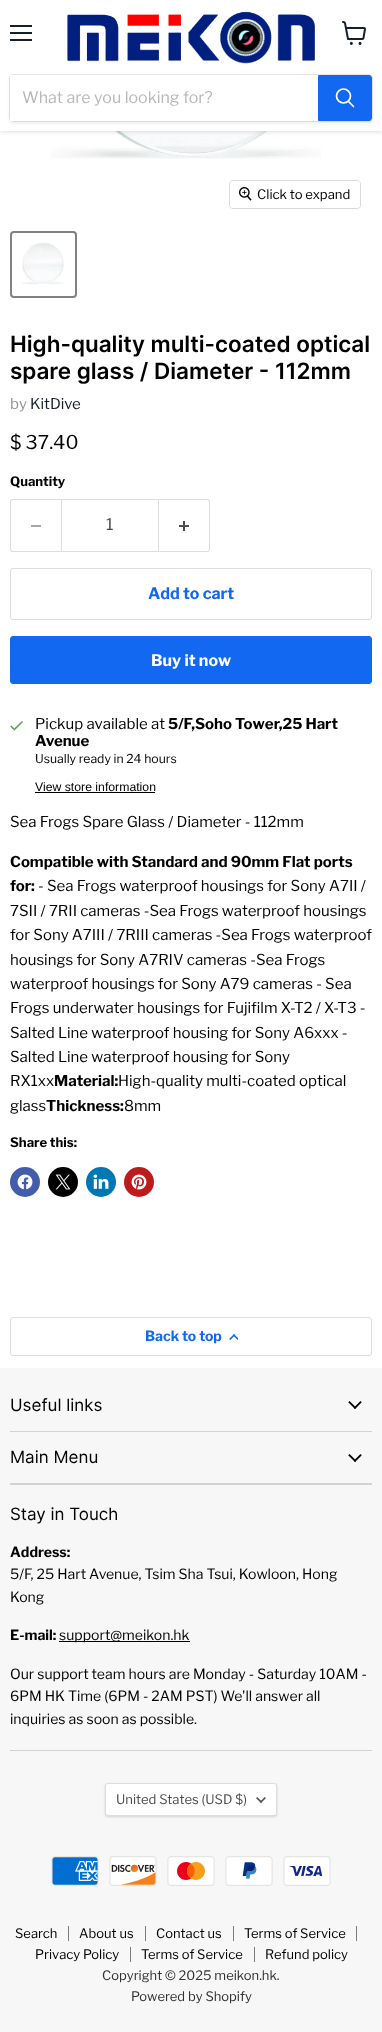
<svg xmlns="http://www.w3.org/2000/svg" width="382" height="2032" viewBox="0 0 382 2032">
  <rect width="100%" height="100%" fill="#fff"/>
  <image x="51" y="131" width="270" height="28" href="img/3.png"/>
  <path d="M0 1h382v131H0z" fill="#80808040" filter="blur(2px)"/>
  <path d="M0 0h382v131H0z" fill="#fff"/>
  <path d="M10 25h22v2H10z" fill="#171f2b"/>
  <path d="M10 32h22v2H10z" fill="#171f2b"/>
  <path d="M10 39h22v2H10z" fill="#171f2b"/>
  <image x="342" y="21" width="24" height="24" href="img/1.png"/>
  <image x="67" y="11" width="248" height="53" href="img/2.png"/>
  <rect x="9" y="76" width="364" height="48" rx="4" fill="#8080801c" filter="blur(1.5px)"/>
  <rect x="9.5" y="74.5" width="363" height="47" rx="3.5" fill="none" stroke="#80808033"/>
  <path d="M10 75h308v46H10z" fill="#fff"/>
  <path d="M318.5 75.5H369C370.5 75.5 371.5 76.5 371.5 78V118C371.5 119.5 370.5 120.5 369 120.5H318.5Z" fill="#1268f1" stroke="#1268f1"/>
  <path d="M353.5 106.5L348.5 101.5" fill="none" stroke="#fff" stroke-width="1.7" stroke-linecap="round"/>
  <circle cx="343.5" cy="96" r="7" fill="none" stroke="#fff" stroke-width="1.7"/>
  <rect x="229.5" y="180.5" width="131" height="28" rx="3.5" fill="none" stroke="#d9d9d9"/>
  <rect x="230" y="181" width="130" height="27" rx="3" fill="#ffffffe6"/>
  <image x="239" y="187" width="13" height="14" href="img/4.png"/>
  <rect x="11" y="232" width="65" height="65" rx="3" fill="none" stroke="#818181" stroke-width="2"/>
  <image x="22" y="242" width="42" height="43" href="img/5.png"/>
  <path d="M13 499H61V552H13C11 552 10 551 10 549V502C10 500 11 499 13 499ZM13 500H61V551H13C12 551 11 550 11 549V502C11 501 12 500 13 500Z" fill="#ddd" fill-rule="evenodd"/>
  <path d="M31 525h10v2H31z" fill="#a6a6a6"/>
  <path d="M61.5 499.5h97v52H61.5z" fill="none" stroke="#ddd"/>
  <path d="M159 499H207C209 499 210 500 210 502V549C210 551 209 552 207 552H159ZM159 500H207C208 500 209 501 209 502V549C209 550 208 551 207 551H159Z" fill="#ddd" fill-rule="evenodd"/>
  <image x="179" y="521" width="10" height="10" href="img/6.png"/>
  <rect x="10.5" y="568.5" width="361" height="51" rx="2.5" fill="none" stroke="#ddd"/>
  <rect x="10.5" y="636.5" width="361" height="47" rx="2.5" fill="#1268f1" stroke="#1268f1"/>
  <image x="10" y="721" width="13" height="10" href="img/7.png"/>
  <path d="M35 792h120v1H35z" fill="#000"/>
  <circle cx="25" cy="1182" r="15" fill="#425dab"/>
  <image x="17" y="1174" width="16" height="16" href="img/8.png"/>
  <circle cx="63" cy="1182" r="15" fill="#000"/>
  <image x="55" y="1174" width="16" height="16" href="img/9.png"/>
  <circle cx="101" cy="1182" r="15" fill="#0077b5"/>
  <image x="93" y="1174" width="16" height="15" href="img/10.png"/>
  <circle cx="139" cy="1182" r="15" fill="#bd1c1c"/>
  <image x="131" y="1174" width="16" height="16" href="img/11.png"/>
  <rect x="10.5" y="1317.5" width="361" height="38" rx="2.5" fill="none" stroke="#ddd"/>
  <image x="229" y="1334" width="9" height="6" href="img/12.png"/>
  <path d="M0 1368h382v664H0z" fill="#f7f7f7"/>
  <path d="M10 1431h362v1H10z" fill="#d2d2d2"/>
  <image x="348" y="1401" width="14" height="8" href="img/13.png"/>
  <path d="M10 1483h362v2H10z" fill="#d2d2d2"/>
  <image x="348" y="1454" width="14" height="8" href="img/13.png"/>
  <path d="M10 1750h362v1H10z" fill="#d2d2d2"/>
  <path d="M59 1641h131v1H59z" fill="#000"/>
  <rect x="105" y="1784" width="172" height="33" rx="3" fill="#00000026" filter="blur(1px)"/>
  <rect x="105.5" y="1783.5" width="171" height="32" rx="2.5" fill="#fff" stroke="#ddd"/>
  <image x="256" y="1797" width="10" height="6" href="img/14.png"/>
  <image x="51" y="1856" width="48" height="30" href="img/15.png"/>
  <image x="109" y="1856" width="48" height="30" href="img/16.png"/>
  <image x="167" y="1856" width="48" height="30" href="img/17.png"/>
  <image x="225" y="1856" width="48" height="30" href="img/18.png"/>
  <image x="283" y="1856" width="48" height="30" href="img/19.png"/>
  <path d="M68 1926h1v15H68z" fill="#7c7c7c"/>
  <path d="M145 1926h1v15H145z" fill="#7c7c7c"/>
  <path d="M233 1926h1v15H233z" fill="#7c7c7c"/>
  <path d="M356 1926h1v15H356z" fill="#7c7c7c"/>
  <path d="M130 1947h1v15H130z" fill="#7c7c7c"/>
  <path d="M254 1947h1v15H254z" fill="#7c7c7c"/>
  <text x="22" y="103" font-family="Libre Franklin" font-size="16" fill="#b8b8b8">What are you looking for?</text>
  <text x="257" y="199" font-family="Libre Franklin" font-size="13.1" fill="#000">Click to expand</text>
  <g font-family="Inter" font-size="22.5" font-weight="600" fill="#000">
    <text x="10" y="352">High-quality multi-coated optical</text>
    <text x="10" y="379">spare glass / Diameter - 112mm</text>
  </g>
  <text x="10" y="409" font-family="Libre Franklin" font-size="15" fill="#949494">by</text>
  <text x="30" y="409" font-family="Libre Franklin" font-size="15" fill="#171f2b">KitDive</text>
  <text x="10" y="449" font-family="Libre Franklin" font-size="19" fill="#000">$ 37.40</text>
  <text x="10" y="486" font-family="Libre Franklin" font-size="13.1" font-weight="bold" fill="#000">Quantity</text>
  <text x="106" y="530" font-family="Libre Franklin" font-size="16" fill="#4d4d4d">1</text>
  <text x="148" y="599" font-family="Libre Franklin" font-size="16" font-weight="bold" fill="#1268f1">Add to cart</text>
  <text x="151" y="666" font-family="Libre Franklin" font-size="16" font-weight="bold" fill="#fff">Buy it now</text>
  <text x="35" y="729" font-family="Libre Franklin" font-size="15" fill="#000">Pickup available at</text>
  <g font-family="Libre Franklin" font-size="15" font-weight="bold" fill="#000">
    <text x="168" y="729">5/F,Soho Tower,25 Hart</text>
    <text x="35" y="746">Avenue</text>
  </g>
  <text x="35" y="763" font-family="Libre Franklin" font-size="12.25" fill="#000">Usually ready in 24 hours</text>
  <text x="35" y="791" font-family="Liberation Sans" font-size="12.25" fill="#000">View store information</text>
  <text x="10" y="827" font-family="Libre Franklin" font-size="15" fill="#000">Sea Frogs Spare Glass / Diameter - 112mm</text>
  <g font-family="Libre Franklin" font-size="15" font-weight="bold" fill="#000">
    <text x="10" y="867">Compatible with Standard and 90mm Flat ports</text>
    <text x="10" y="891">for:</text>
  </g>
  <g font-family="Libre Franklin" font-size="15" fill="#000">
    <text x="38" y="891">- Sea Frogs waterproof housings for Sony A7II /</text>
    <text x="10" y="916">7SII / 7RII cameras -Sea Frogs waterproof housings</text>
    <text x="10" y="940">for Sony A7III / 7RIII cameras -Sea Frogs waterproof</text>
    <text x="10" y="965">housings for Sony A7RIV cameras -Sea Frogs</text>
    <text x="10" y="989">waterproof housings for Sony A79 cameras - Sea</text>
    <text x="10" y="1013">Frogs underwater housings for Fujifilm X-T2 / X-T3 -</text>
    <text x="10" y="1038">Salted Line waterproof housing for Sony A6xxx -</text>
    <text x="10" y="1062">Salted Line waterproof housing for Sony</text>
    <text x="10" y="1086">RX1xx</text>
  </g>
  <text x="54" y="1086" font-family="Libre Franklin" font-size="15" font-weight="bold" fill="#000">Material:</text>
  <g font-family="Libre Franklin" font-size="15" fill="#000">
    <text x="118" y="1086">High-quality multi-coated optical</text>
    <text x="10" y="1111">glass</text>
  </g>
  <text x="46" y="1111" font-family="Libre Franklin" font-size="15" font-weight="bold" fill="#000">Thickness:</text>
  <text x="124" y="1111" font-family="Libre Franklin" font-size="15" fill="#000">8mm</text>
  <text x="10" y="1147" font-family="Libre Franklin" font-size="13.1" font-weight="bold" fill="#000">Share this:</text>
  <text x="145" y="1341" font-family="Libre Franklin" font-size="14" font-weight="bold" fill="#1268f1">Back to top</text>
  <g font-family="Inter" font-size="17" fill="#000">
    <text x="10" y="1411">Useful links</text>
    <text x="10" y="1463">Main Menu</text>
    <text x="10" y="1520">Stay in Touch</text>
  </g>
  <text x="10" y="1557" font-family="Libre Franklin" font-size="14.05" font-weight="bold" fill="#000">Address:</text>
  <g font-family="Libre Franklin" font-size="14.05" fill="#000">
    <text x="10" y="1579">5/F, 25 Hart Avenue, Tsim Sha Tsui, Kowloon, Hong</text>
    <text x="10" y="1602">Kong</text>
  </g>
  <text x="10" y="1640" font-family="Libre Franklin" font-size="14.05" font-weight="bold" fill="#000">E-mail:</text>
  <g font-family="Libre Franklin" font-size="14.05" fill="#000">
    <text x="59" y="1640">support@meikon.hk</text>
    <text x="10" y="1679">Our support team hours are Monday - Saturday 10AM -</text>
    <text x="10" y="1701">6PM HK Time (6PM - 2AM PST) We'll answer all</text>
    <text x="10" y="1724">inquiries as soon as possible.</text>
  </g>
  <text x="116" y="1804" font-family="Libre Franklin" font-size="13.1" fill="#4d4d4d">United States (USD $)</text>
  <g font-family="Libre Franklin" font-size="13" fill="#000">
    <text x="15" y="1938">Search</text>
    <text x="79" y="1938">About us</text>
    <text x="156" y="1938">Contact us</text>
    <text x="244" y="1938">Terms of Service</text>
    <text x="35" y="1959">Privacy Policy</text>
    <text x="141" y="1959">Terms of Service</text>
    <text x="265" y="1959">Refund policy</text>
  </g>
  <g font-family="Libre Franklin" font-size="13" fill="#313131">
    <text x="102" y="1980">Copyright © 2025 meikon.hk.</text>
    <text x="131" y="2001">Powered by Shopify</text>
  </g>
</svg>
